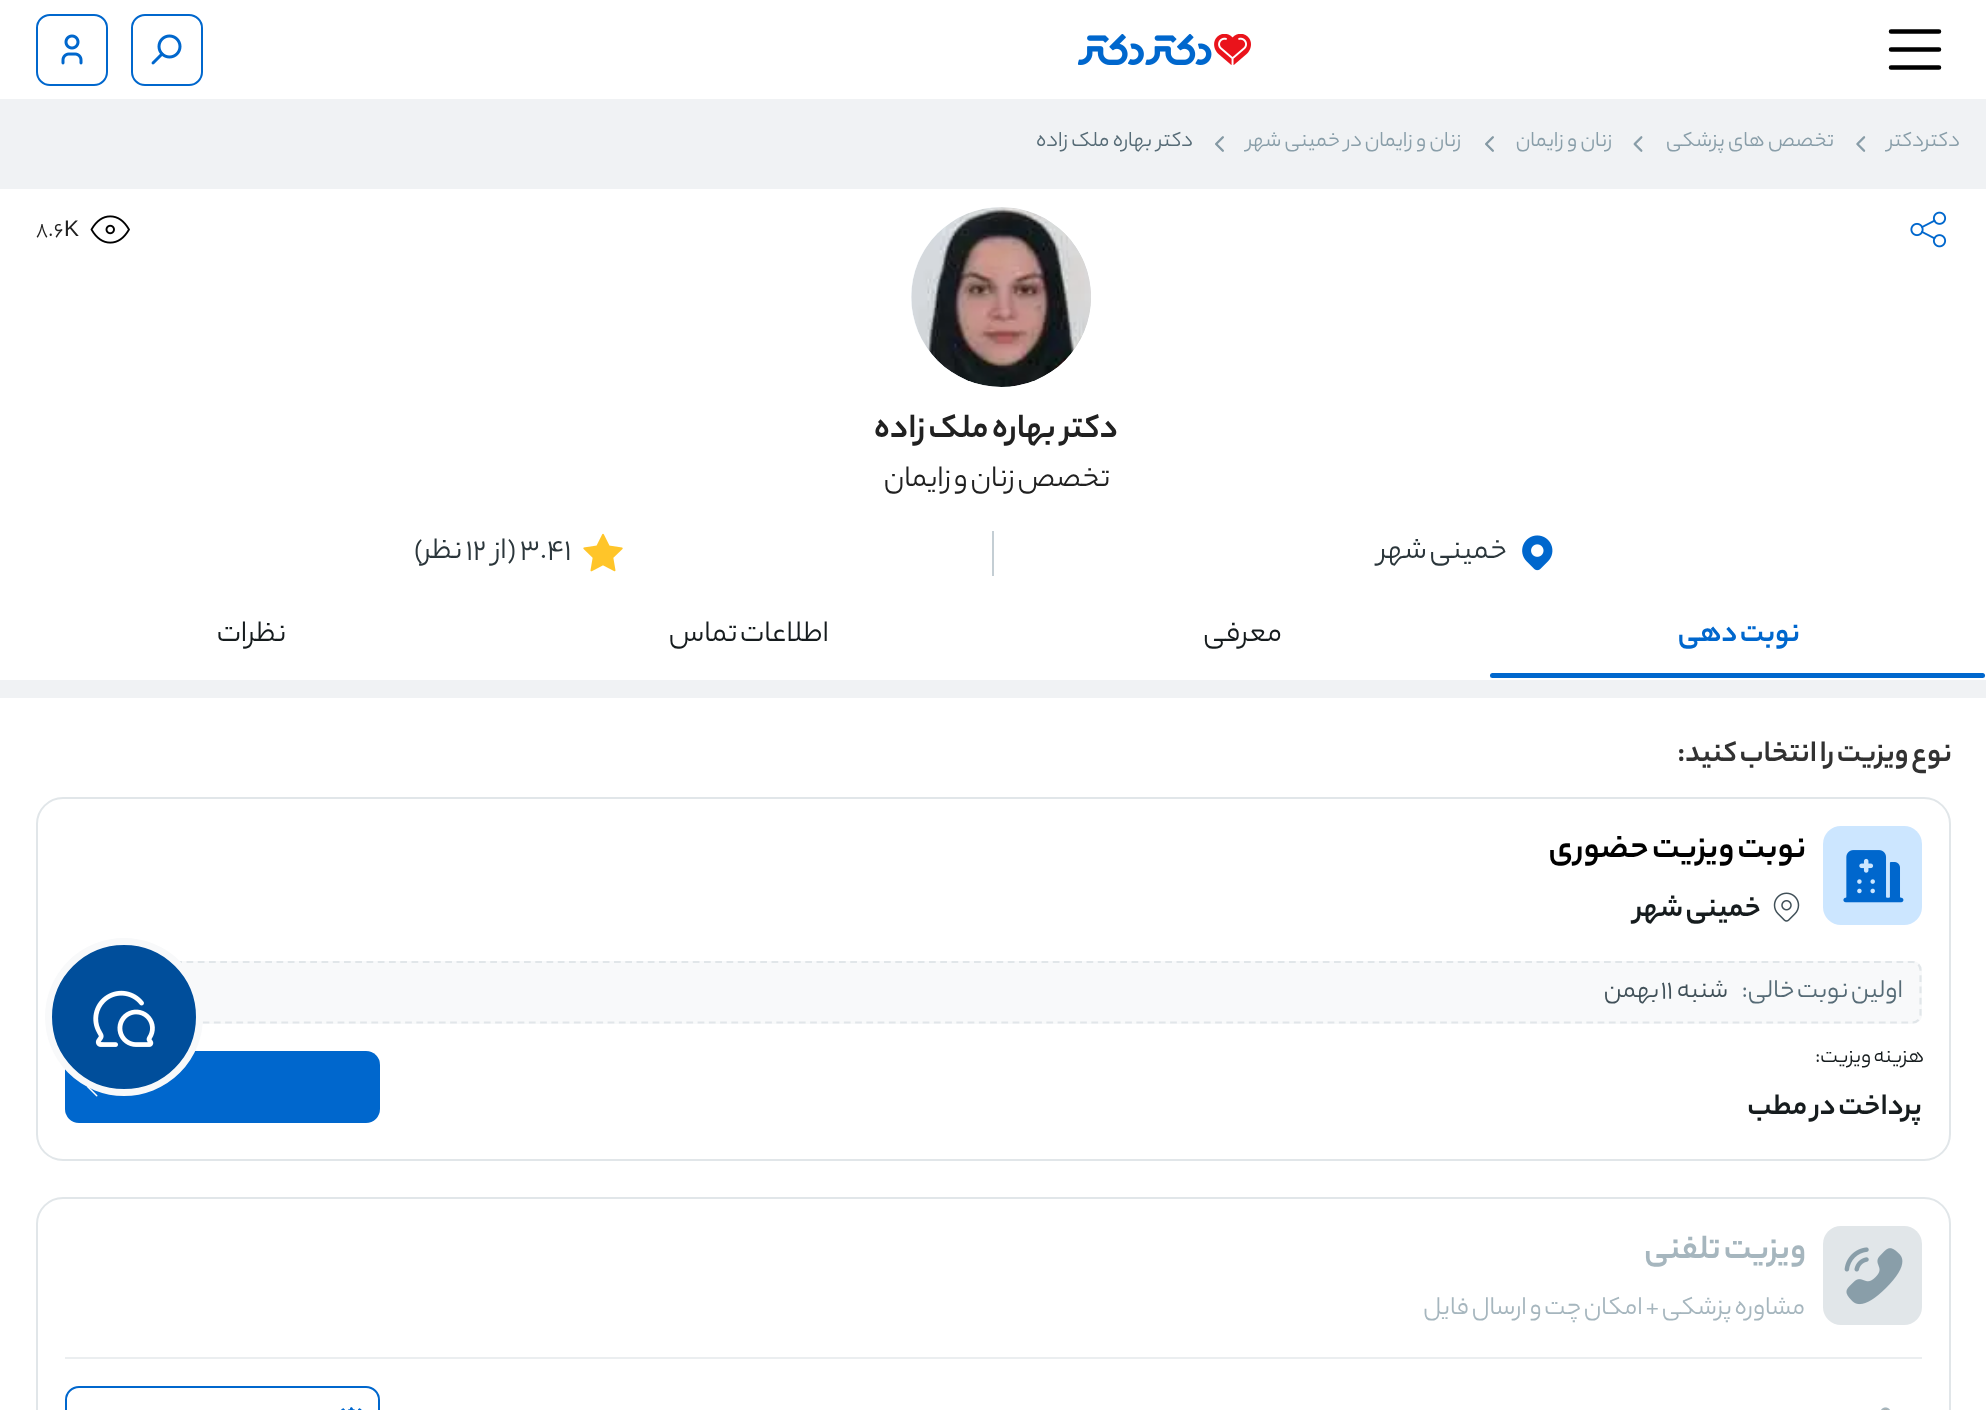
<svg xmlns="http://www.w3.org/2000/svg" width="1986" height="1410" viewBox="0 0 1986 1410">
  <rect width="100%" height="100%" fill="#f0f2f4"/>
  <path d="M0 0h1986v99H0z" fill="#fff"/>
  <path d="M1891 31.5H1939M1891 49.5H1939M1891 67.5H1939" fill="none" stroke="#000" stroke-width="4.5" stroke-linecap="round" stroke-linejoin="round"/>
  <image x="1078" y="34" width="173" height="31" href="img/1.png"/>
  <rect x="132" y="15" width="70" height="70" rx="13" fill="none" stroke="#0067cd" stroke-width="2"/>
  <image x="151" y="34" width="31" height="31" href="img/2.png"/>
  <rect x="37" y="15" width="70" height="70" rx="13" fill="none" stroke="#0067cd" stroke-width="2"/>
  <image x="61" y="34" width="22" height="31" href="img/3.png"/>
  <image x="1856" y="136" width="10" height="16" href="img/4.png"/>
  <image x="1633" y="136" width="10" height="16" href="img/5.png"/>
  <image x="1485" y="136" width="9" height="16" href="img/6.png"/>
  <image x="1215" y="136" width="9" height="16" href="img/6.png"/>
  <path d="M0 189h1986v491H0z" fill="#fff"/>
  <image x="1910" y="211" width="37" height="37" href="img/7.png"/>
  <circle cx="1001" cy="297" r="90" fill="#f0f4f8"/>
  <image x="911" y="207" width="180" height="180" href="img/8.png"/>
  <image x="90" y="215" width="40" height="29" href="img/9.png"/>
  <image x="1522" y="535" width="31" height="36" href="img/10.png"/>
  <path d="M992 531h2v45H992z" fill="#c4ced4"/>
  <image x="583" y="533" width="40" height="39" href="img/11.png"/>
  <rect x="1490" y="673" width="495" height="5" rx="2.5" fill="#0067cd"/>
  <path d="M0 698h1986v712H0z" fill="#fff"/>
  <rect x="37" y="798" width="1913" height="362" rx="26" fill="none" stroke="#e1e6e9" stroke-width="2"/>
  <rect x="1823" y="826" width="99" height="99" rx="18" fill="#cce6ff"/>
  <image x="1843" y="850" width="61" height="53" href="img/12.png"/>
  <image x="1773" y="892" width="27" height="30" href="img/13.png"/>
  <rect x="65" y="961" width="1857" height="63" rx="9" fill="#f8f9fa"/>
  <path d="M74 962H1912.5C1917 962 1920.5 965.5 1920.5 970V1015C1920.5 1019 1917 1022.5 1912.5 1022.5H74C70 1022.5 66.5 1019 66.5 1015V970C66.5 965.5 70 962 74 962Z" fill="none" stroke="#e1e6e9" stroke-width="2.2" stroke-dasharray="6.75 4.5"/>
  <rect x="65" y="1051" width="315" height="72" rx="14" fill="#0067cd"/>
  <image x="87" y="1086" width="11" height="11" href="img/14.png"/>
  <rect x="37" y="1198" width="1913" height="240" rx="26" fill="none" stroke="#e1e6e9" stroke-width="2"/>
  <rect x="1823" y="1226" width="99" height="99" rx="18" fill="#e1e6e9"/>
  <image x="1844" y="1247" width="59" height="58" href="img/15.png"/>
  <path d="M65 1357h1857v2H65z" fill="#ebeef0"/>
  <image x="1881" y="1407" width="9" height="3" href="img/16.png"/>
  <rect x="66" y="1387" width="313" height="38" rx="13" fill="none" stroke="#0067cd" stroke-width="2"/>
  <image x="341" y="1407" width="21" height="3" href="img/17.png"/>
  <circle cx="124" cy="1017" r="75.5" fill="#004e9b" stroke="#f8f9fa" stroke-width="7"/>
  <image x="93" y="990" width="62" height="57" href="img/18.png"/>
  <g font-family="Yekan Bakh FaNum" font-size="22.5" direction="rtl" fill="#899ea9">
    <text x="1960" y="146">دکتردکتر</text>
    <text x="1834" y="146">تخصص های پزشکی</text>
    <text x="1612" y="146">زنان و زایمان</text>
    <text x="1461" y="146">زنان و زایمان</text>
    <text x="1362" y="146">در خمینی شهر</text>
  </g>
  <text x="1193" y="146" font-family="Yekan Bakh FaNum" font-size="22.5" direction="rtl" fill="#566b76">دکتر بهاره ملک زاده</text>
  <text x="64" y="236" font-family="Liberation Sans" font-size="22.5" letter-spacing="0.35" fill="#212121">K</text>
  <text x="36" y="236" font-family="Yekan Bakh FaNum" font-size="22.5" letter-spacing="0.35" fill="#212121">8.6</text>
  <text x="1118" y="437" word-spacing="-2" font-family="Yekan Bakh FaNum" font-size="36" font-weight="bold" letter-spacing="0.35" direction="rtl" fill="#212121">دکتر بهاره ملک زاده</text>
  <text x="1110" y="486" word-spacing="-2" font-family="Yekan Bakh FaNum" font-size="31.5" letter-spacing="0.35" direction="rtl" fill="#212121">تخصص زنان و زایمان</text>
  <text x="1507" y="558" word-spacing="-2" font-family="Yekan Bakh FaNum" font-size="31.5" letter-spacing="0.35" direction="rtl" fill="#2b363b">خمینی شهر</text>
  <text x="520" y="558" font-family="Yekan Bakh FaNum" font-size="31.5" letter-spacing="0.35" fill="#2b363b">3.41</text>
  <text x="516" y="558" font-family="Yekan Bakh FaNum" font-size="31.5" letter-spacing="0.35" direction="rtl" fill="#2b363b">(از</text>
  <text x="466" y="558" font-family="Yekan Bakh FaNum" font-size="31.5" letter-spacing="0.35" fill="#2b363b">12</text>
  <text x="462" y="558" font-family="Yekan Bakh FaNum" font-size="31.5" letter-spacing="0.35" direction="rtl" fill="#2b363b">نظر)</text>
  <text x="1800" y="641" word-spacing="-2" font-family="Yekan Bakh FaNum" font-size="31.5" font-weight="bold" letter-spacing="0.35" direction="rtl" fill="#0067cd">نوبت دهی</text>
  <g font-family="Yekan Bakh FaNum" font-size="31.5" letter-spacing="0.35" direction="rtl" fill="#161c1e">
    <text x="1282" y="641">معرفی</text>
    <text x="829" y="641" word-spacing="-2">اطلاعات تماس</text>
    <text x="286" y="641">نظرات</text>
  </g>
  <text x="1952" y="761" word-spacing="-2" font-family="Yekan Bakh FaNum" font-size="31.5" font-weight="bold" letter-spacing="0.35" direction="rtl" fill="#323232">نوع ویزیت را انتخاب کنید:</text>
  <text x="1806" y="857" word-spacing="-2" font-family="Yekan Bakh FaNum" font-size="36" font-weight="bold" letter-spacing="0.35" direction="rtl" fill="#010101">نوبت ویزیت حضوری</text>
  <text x="1761" y="916" word-spacing="-2" font-family="Yekan Bakh FaNum" font-size="31.5" font-weight="bold" letter-spacing="0.35" direction="rtl" fill="#161c1e">خمینی شهر</text>
  <text x="1903" y="997" word-spacing="-1.5" font-family="Yekan Bakh FaNum" font-size="27" letter-spacing="0.35" direction="rtl" fill="#566b76">اولین نوبت خالی:</text>
  <text x="1728" y="997" font-family="Yekan Bakh FaNum" font-size="27" letter-spacing="0.35" direction="rtl" fill="#405058">شنبه</text>
  <text x="1661" y="997" font-family="Yekan Bakh FaNum" font-size="27" letter-spacing="0.35" fill="#405058">11</text>
  <text x="1659" y="997" font-family="Yekan Bakh FaNum" font-size="27" letter-spacing="0.35" direction="rtl" fill="#405058">بهمن</text>
  <text x="1924" y="1062" word-spacing="-1" font-family="Yekan Bakh FaNum" font-size="22.5" letter-spacing="0.35" direction="rtl" fill="#161c1e">هزینه ویزیت:</text>
  <text x="1922" y="1114" word-spacing="-2" font-family="Yekan Bakh FaNum" font-size="31.5" font-weight="bold" letter-spacing="0.35" direction="rtl" fill="#161c1e">پرداخت در مطب</text>
  <text x="1806" y="1258" word-spacing="-2" font-family="Yekan Bakh FaNum" font-size="36" font-weight="bold" letter-spacing="0.35" direction="rtl" fill="#a6b6be">ویزیت تلفنی</text>
  <text x="1805" y="1314" word-spacing="-1.5" font-family="Yekan Bakh FaNum" font-size="27" letter-spacing="0.35" direction="rtl" fill="#a6b6be">مشاوره پزشکی + امکان چت و ارسال فایل</text>
</svg>
